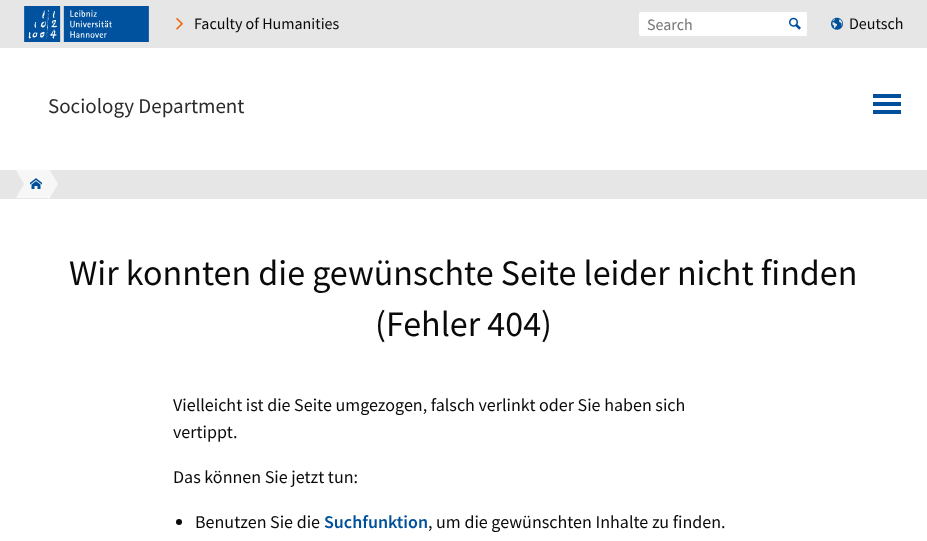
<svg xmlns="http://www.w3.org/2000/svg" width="927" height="541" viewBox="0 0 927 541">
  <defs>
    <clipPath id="clip1"><path d="M9 170h894v29H9z"/></clipPath>
  </defs>
  <rect width="100%" height="100%" fill="#fff"/>
  <path d="M0 0h927v48H0z" fill="#e6e6e6"/>
  <image x="24" y="6" width="125" height="36" href="img/1.png"/>
  <image x="176" y="17" width="7" height="13" href="img/2.png"/>
  <rect x="639" y="12" width="168" height="24" rx="2" fill="#fff"/>
  <path d="M783 12H805C806 12 807 13 807 14V34C807 35 806 36 805 36H783Z" fill="#fff"/>
  <image x="789" y="17" width="12" height="13" href="img/3.png"/>
  <image x="831" y="17" width="12" height="13" href="img/4.png"/>
  <image x="873" y="94" width="28" height="20" href="img/5.png"/>
  <path d="M0 170h927v29H0z" fill="#e6e6e6"/>
  <path d="M13 170h35v28H13z" fill="#f7f7f7"/>
  <g clip-path="url(#clip1)">
    <path d="M14 201V167L24 184Z" fill="#e6e6e6"/>
    <path d="M12 201V167L22 184Z" fill="#e6e6e6"/>
  </g>
  <image x="30" y="178" width="12" height="11" href="img/6.png"/>
  <g clip-path="url(#clip1)">
    <path d="M48 201V167L58 184Z" fill="#f7f7f7"/>
  </g>
  <circle cx="179" cy="522" r="3" fill="#0a0a0a"/>
  <text x="194" y="29" font-family="Source Sans Pro" font-size="16" fill="#0a0a0a">Faculty of Humanities</text>
  <text x="647" y="30" font-family="Source Sans Pro" font-size="16" fill="#777">Search</text>
  <text x="849" y="29" font-family="Source Sans Pro" font-size="16" fill="#0a0a0a">Deutsch</text>
  <text x="48" y="113" font-family="Source Sans Pro" font-size="21" fill="#2b2b2b">Sociology Department</text>
  <g font-family="Source Sans Pro" font-size="36" fill="#0a0a0a">
    <text x="69" y="285">Wir konnten die gewünschte Seite leider nicht finden</text>
    <text x="375" y="336">(Fehler 404)</text>
  </g>
  <g font-family="Source Sans Pro" font-size="18" fill="#0a0a0a">
    <text x="173" y="411">Vielleicht ist die Seite umgezogen, falsch verlinkt oder Sie haben sich</text>
    <text x="173" y="438">vertippt.</text>
    <text x="173" y="483">Das können Sie jetzt tun:</text>
    <text x="195" y="528">Benutzen Sie die</text>
  </g>
  <text x="324" y="528" font-family="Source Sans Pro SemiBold" font-size="18" font-weight="600" fill="#00509b">Suchfunktion</text>
  <text x="428" y="528" font-family="Source Sans Pro" font-size="18" fill="#0a0a0a">, um die gewünschten Inhalte zu finden.</text>
</svg>
